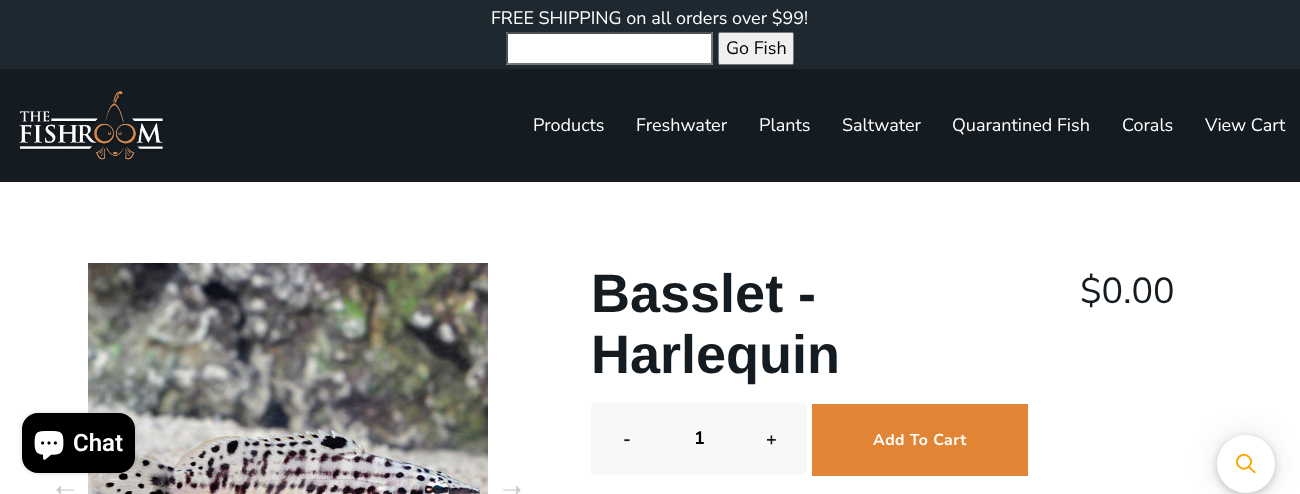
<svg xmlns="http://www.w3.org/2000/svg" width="1300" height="494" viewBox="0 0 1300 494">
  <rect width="100%" height="100%" fill="#fff"/>
  <path d="M0 0h1300v69H0z" fill="#1e2831"/>
  <path d="M506 32h207v33H506z" fill="#fff"/>
  <path d="M506 32H713L711 34H508Z" fill="#4f4f4f"/>
  <path d="M713 32V65L711 63V34Z" fill="#767676"/>
  <path d="M713 65H506L508 63H711Z" fill="#767676"/>
  <path d="M506 65V32L508 34V63Z" fill="#4f4f4f"/>
  <rect x="718.5" y="32.5" width="75" height="32" rx="1.5" fill="#efefef" stroke="#767676"/>
  <path d="M0 69h1300v113H0z" fill="#141b21"/>
  <image x="19" y="91" width="144" height="70" href="img/1.png"/>
  <image x="88" y="263" width="400" height="231" href="img/4.png"/>
  <circle cx="65" cy="490" r="27" fill="#ffffff33"/>
  <rect x="22" y="413" width="113" height="60" rx="16" fill="#00000026" filter="blur(2.5px)"/>
  <rect x="22" y="413" width="113" height="60" rx="16" fill="#000"/>
  <image x="34" y="431" width="30" height="29" href="img/2.png"/>
  <image x="56" y="485" width="18" height="9" href="img/3.png"/>
  <circle cx="512" cy="490" r="27" fill="#ffffff33"/>
  <image x="503" y="485" width="18" height="9" href="img/5.png"/>
  <path d="M596 403H663V475H596C593 475 591 473 591 470V408C591 405 593 403 596 403Z" fill="#f8f8f8"/>
  <path d="M663 403h72v72H663z" fill="#f8f8f8"/>
  <path d="M735 403H802C805 403 807 405 807 408V470C807 473 805 475 802 475H735Z" fill="#f8f8f8"/>
  <path d="M812 404h216v72H812z" fill="#e18535"/>
  <rect x="1217" y="439" width="58" height="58" rx="29" fill="#0000000d" filter="blur(4px)"/>
  <rect x="1217" y="437" width="58" height="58" rx="29" fill="#00000026" filter="blur(4px)"/>
  <rect x="1217" y="435" width="58" height="58" rx="29" fill="#0000001a" filter="blur(15px)"/>
  <circle cx="1246" cy="464" r="29" fill="#fff"/>
  <path d="M1239 457C1245.5 450.5 1255.5 460 1249 466.5C1242.5 473 1232.5 463.5 1239 457Z" fill="none" stroke="#faa805" stroke-width="2"/>
  <path d="M1248 467.5L1249.5 466L1255.5 472C1256 472.5 1254.5 474 1254 473Z" fill="#faa805"/>
  <text x="491" y="24" font-family="Nunito Sans" font-size="18" fill="#fff">FREE SHIPPING on all orders over $99!</text>
  <text x="726" y="54" font-family="Nunito Sans" font-size="18" fill="#000">Go Fish</text>
  <g font-family="Nunito Sans" font-size="18" fill="#fff">
    <text x="533" y="131">Products</text>
    <text x="636" y="131">Freshwater</text>
    <text x="759" y="131">Plants</text>
    <text x="842" y="131">Saltwater</text>
    <text x="952" y="131">Quarantined Fish</text>
    <text x="1122" y="131">Corals</text>
    <text x="1205" y="131">View Cart</text>
  </g>
  <text x="73" y="451" font-family="Roboto" font-size="24" font-weight="600" fill="#fff">Chat</text>
  <g font-family="Liberation Sans" font-size="54" font-weight="bold" fill="#141b21">
    <text x="591" y="312">Basslet -</text>
    <text x="591" y="373">Harlequin</text>
  </g>
  <text x="1080" y="303" font-family="Nunito Sans" font-size="36" fill="#141b21">$0.00</text>
  <text x="623" y="445" font-family="Nunito Sans" font-size="18" font-weight="bold" fill="#141b21">-</text>
  <text x="694" y="444" font-family="Nunito Sans" font-size="18" font-weight="bold" fill="#000">1</text>
  <text x="766" y="445" font-family="Nunito Sans" font-size="18" font-weight="bold" fill="#141b21">+</text>
  <text x="873" y="445" font-family="Nunito Sans" font-size="15.75" font-weight="bold" letter-spacing="0.5" fill="#fff">Add To Cart</text>
</svg>
